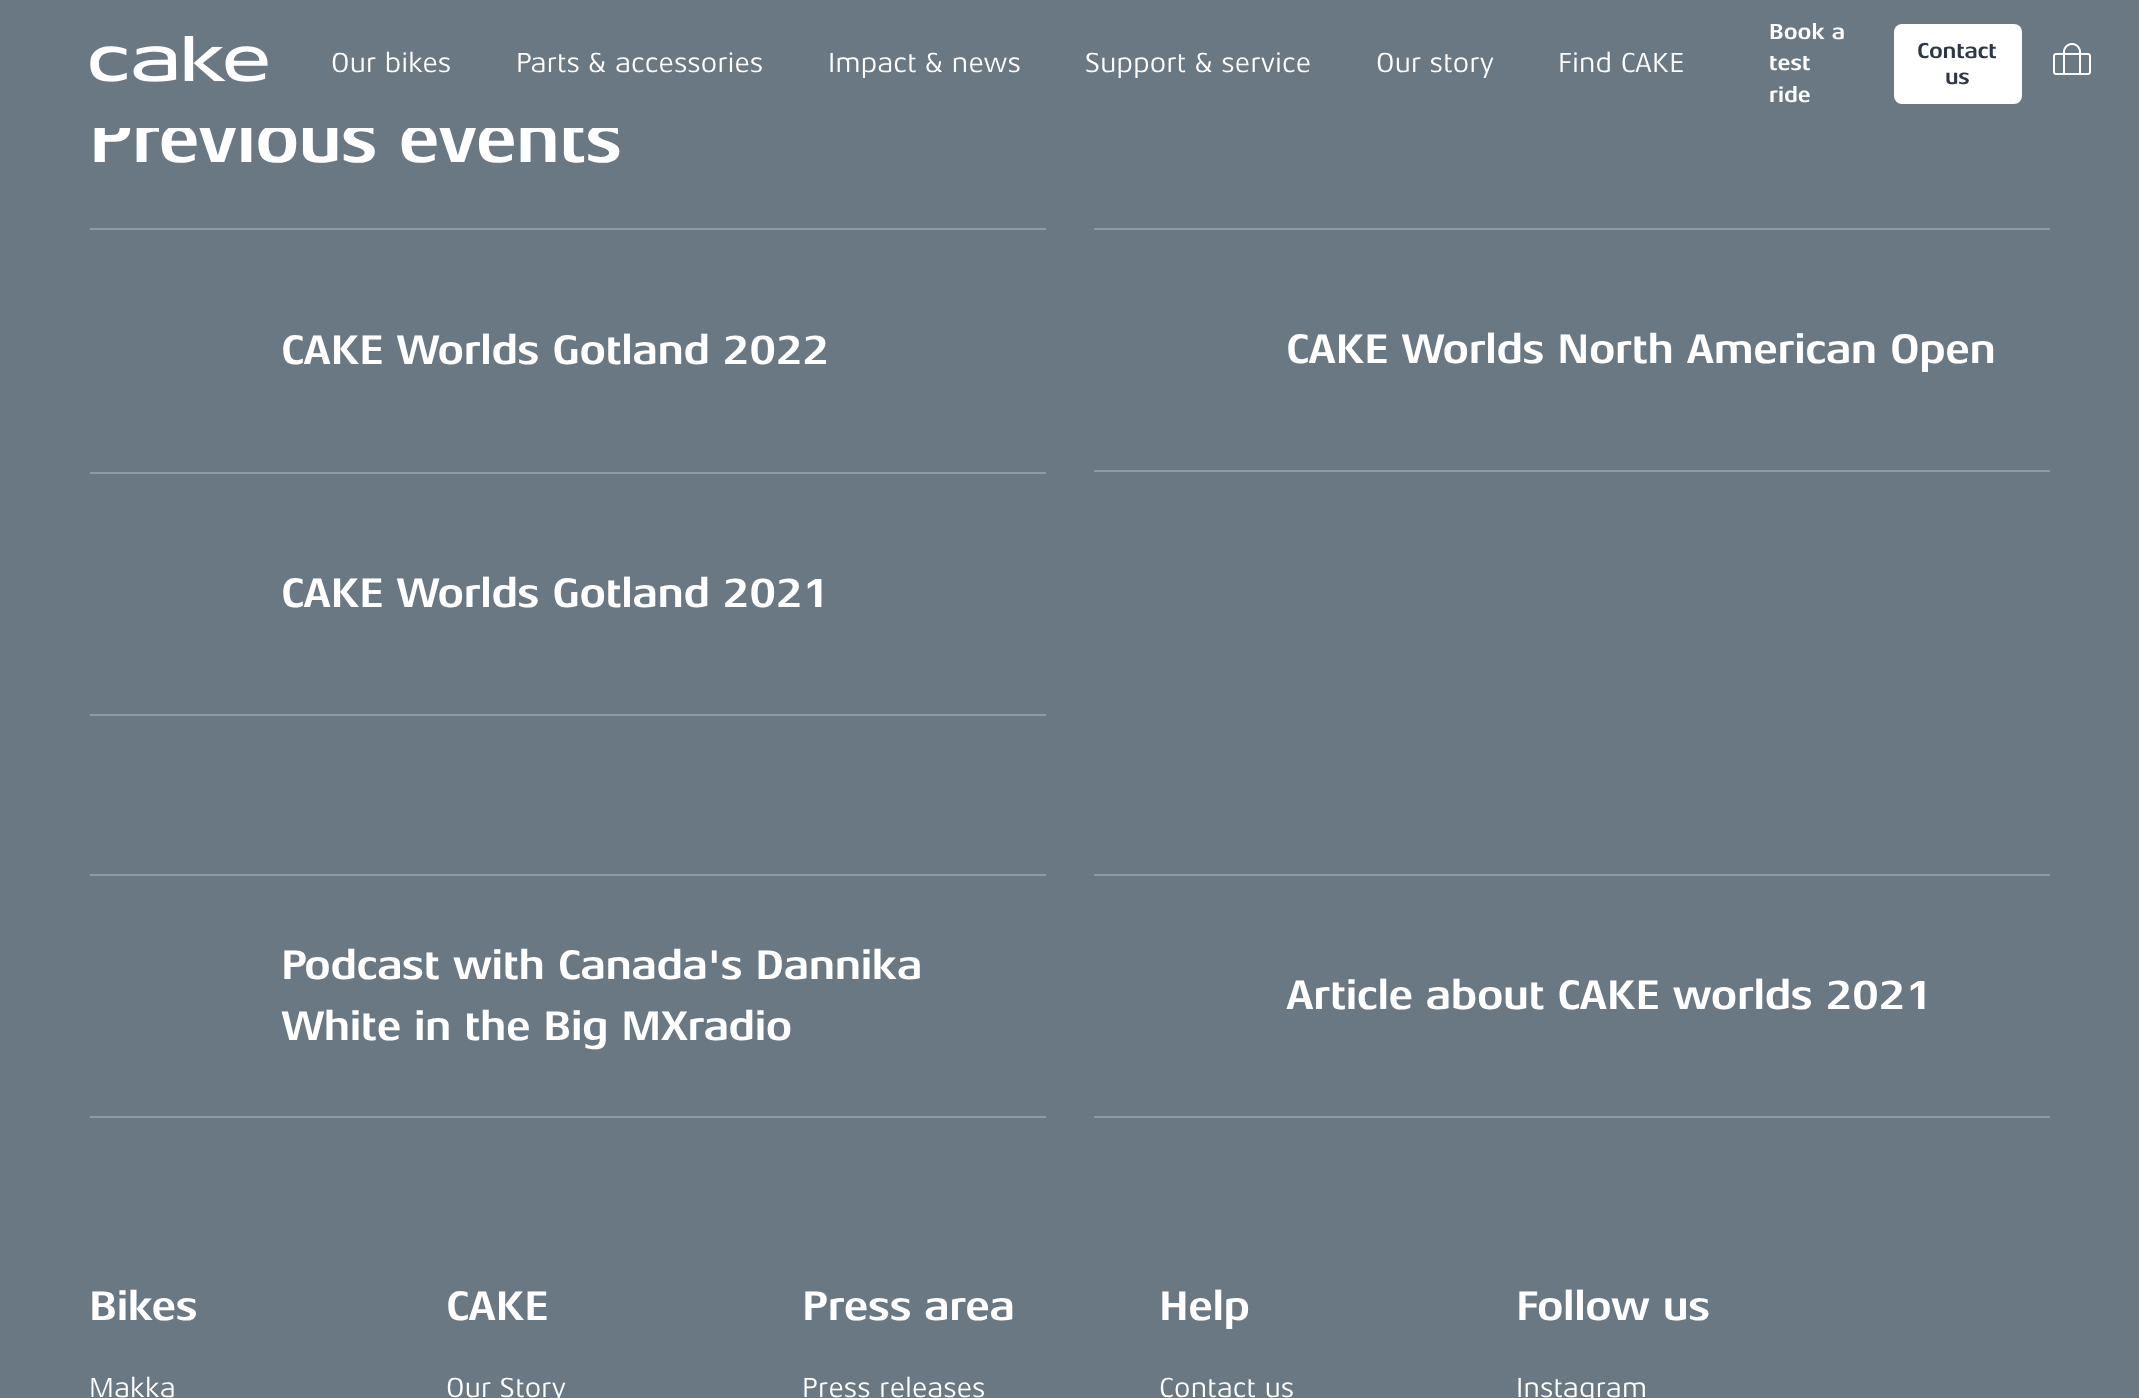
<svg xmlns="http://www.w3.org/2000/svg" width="2139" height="1398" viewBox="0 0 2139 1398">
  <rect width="100%" height="100%" fill="#6a7883"/>
  <image x="90" y="36" width="178" height="46" href="img/1.png"/>
  <rect x="1894" y="24" width="128" height="80" rx="8" fill="#fff"/>
  <image x="2053" y="43" width="38" height="32" href="img/2.png"/>
  <path d="M90 228h956v2H90z" fill="#8f9aa2"/>
  <path d="M1094 228h956v2H1094z" fill="#8f9aa2"/>
  <path d="M1094 470h956v2H1094z" fill="#8f9aa2"/>
  <path d="M90 472h956v2H90z" fill="#8f9aa2"/>
  <path d="M90 714h956v2H90z" fill="#8f9aa2"/>
  <path d="M90 874h956v2H90z" fill="#8f9aa2"/>
  <path d="M90 1116h956v2H90z" fill="#8f9aa2"/>
  <path d="M1094 874h956v2H1094z" fill="#8f9aa2"/>
  <path d="M1094 1116h956v2H1094z" fill="#8f9aa2"/>
  <g font-family="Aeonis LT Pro" font-size="28" letter-spacing="0.25" fill="#fff">
    <text x="331" y="72">Our bikes</text>
    <text x="516" y="72">Parts &amp; accessories</text>
    <text x="828" y="72">Impact &amp; news</text>
    <text x="1085" y="72">Support &amp; service</text>
    <text x="1376" y="72">Our story</text>
    <text x="1558" y="72">Find CAKE</text>
  </g>
  <g font-family="Aeonis LT Pro" font-size="22" font-weight="bold" fill="#fff">
    <text x="1769" y="39">Book a</text>
    <text x="1769" y="70">test</text>
    <text x="1769" y="102">ride</text>
  </g>
  <g font-family="Aeonis LT Pro" font-size="22" font-weight="bold" letter-spacing="-0.25" fill="#2e3844">
    <text x="1917" y="58">Contact</text>
    <text x="1945" y="84">us</text>
  </g>
  <text x="89" y="162" font-family="Aeonis LT Pro" font-size="70" font-weight="bold" letter-spacing="-0.75" fill="#fff">Previous events</text>
  <path d="M94 112h525v16H94z" fill="#6a7883"/>
  <g font-family="Aeonis LT Pro" font-size="42" font-weight="bold" letter-spacing="-0.4" fill="#fff">
    <text x="281" y="364">CAKE Worlds Gotland 2022</text>
    <text x="1286" y="363">CAKE Worlds North American Open</text>
    <text x="281" y="607">CAKE Worlds Gotland 2021</text>
    <text x="281" y="979">Podcast with Canada's Dannika</text>
    <text x="281" y="1040">White in the Big MXradio</text>
    <text x="1286" y="1009">Article about CAKE worlds 2021</text>
    <text x="89" y="1320">Bikes</text>
  </g>
  <text x="89" y="1397" font-family="Aeonis LT Pro" font-size="28" letter-spacing="0.25" fill="#fff">Makka</text>
  <text x="446" y="1320" font-family="Aeonis LT Pro" font-size="42" font-weight="bold" letter-spacing="-0.4" fill="#fff">CAKE</text>
  <text x="446" y="1397" font-family="Aeonis LT Pro" font-size="28" letter-spacing="0.25" fill="#fff">Our Story</text>
  <text x="802" y="1320" font-family="Aeonis LT Pro" font-size="42" font-weight="bold" letter-spacing="-0.4" fill="#fff">Press area</text>
  <text x="802" y="1397" font-family="Aeonis LT Pro" font-size="28" letter-spacing="0.25" fill="#fff">Press releases</text>
  <text x="1159" y="1320" font-family="Aeonis LT Pro" font-size="42" font-weight="bold" letter-spacing="-0.4" fill="#fff">Help</text>
  <text x="1159" y="1397" font-family="Aeonis LT Pro" font-size="28" letter-spacing="0.25" fill="#fff">Contact us</text>
  <text x="1516" y="1320" font-family="Aeonis LT Pro" font-size="42" font-weight="bold" letter-spacing="-0.4" fill="#fff">Follow us</text>
  <text x="1516" y="1397" font-family="Aeonis LT Pro" font-size="28" letter-spacing="0.25" fill="#fff">Instagram</text>
</svg>
